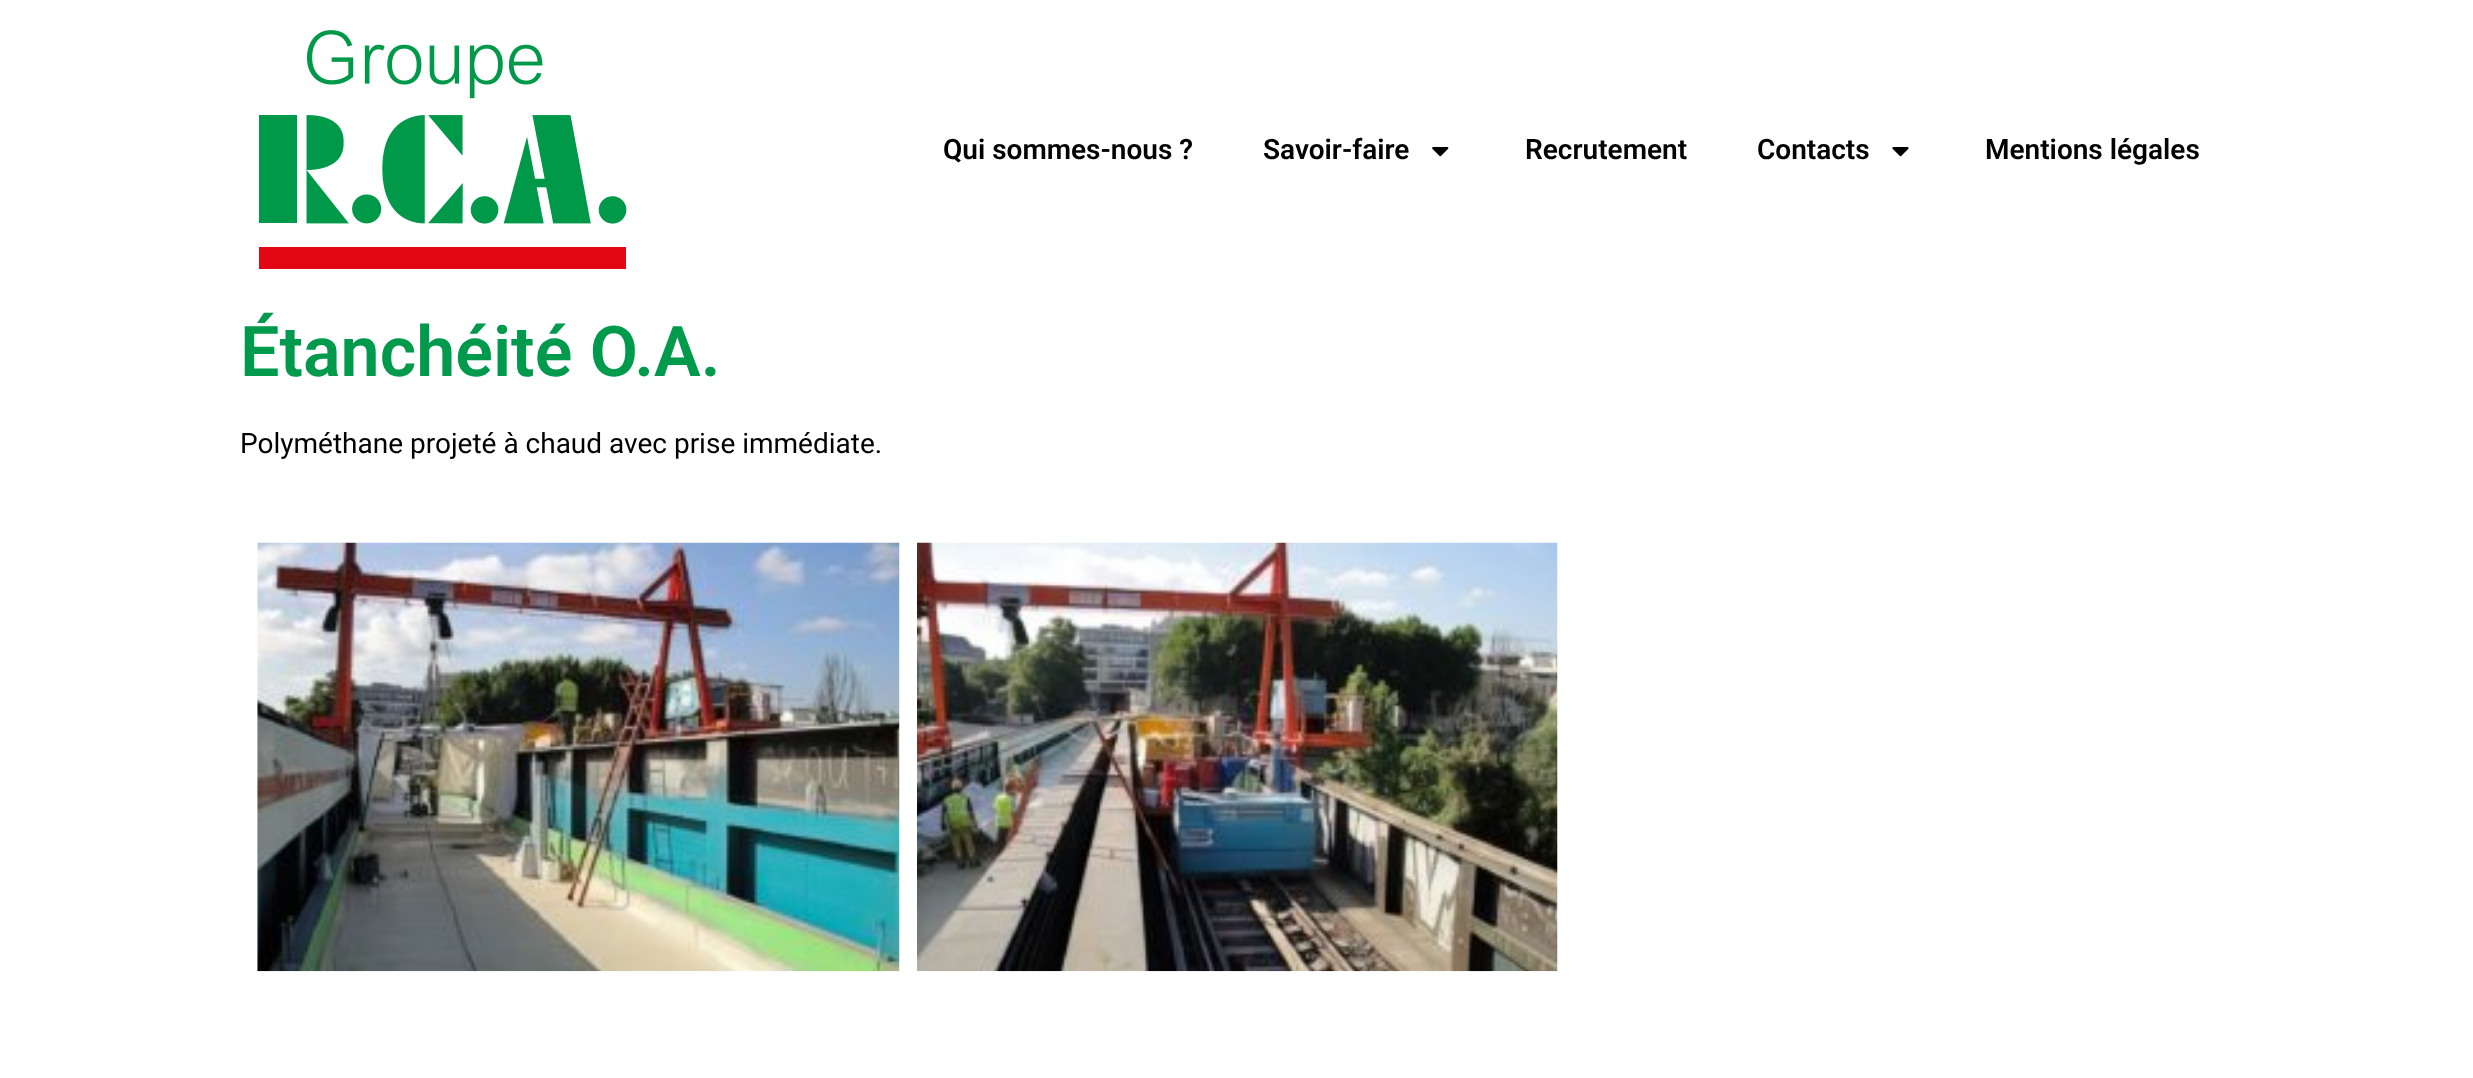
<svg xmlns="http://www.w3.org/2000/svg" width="2473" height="1078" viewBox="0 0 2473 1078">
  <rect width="100%" height="100%" fill="#fff"/>
  <image x="259" y="30" width="368" height="239" href="img/1.png"/>
  <image x="1432" y="147" width="17" height="10" href="img/2.png"/>
  <image x="1892" y="147" width="17" height="10" href="img/3.png"/>
  <image x="257" y="542" width="643" height="430" href="img/4.png"/>
  <image x="917" y="542" width="641" height="430" href="img/5.png"/>
  <g font-family="Roboto" font-size="28" font-weight="600" fill="#000">
    <text x="943" y="159">Qui sommes-nous ?</text>
    <text x="1263" y="159">Savoir-faire</text>
    <text x="1525" y="159">Recrutement</text>
    <text x="1757" y="159">Contacts</text>
    <text x="1985" y="159">Mentions légales</text>
  </g>
  <text x="240" y="376" font-family="Roboto" font-size="70" font-weight="600" fill="#009a4d">Étanchéité O.A.</text>
  <text x="240" y="453" font-family="Roboto" font-size="28" fill="#000">Polyméthane projeté à chaud avec prise immédiate.</text>
</svg>
